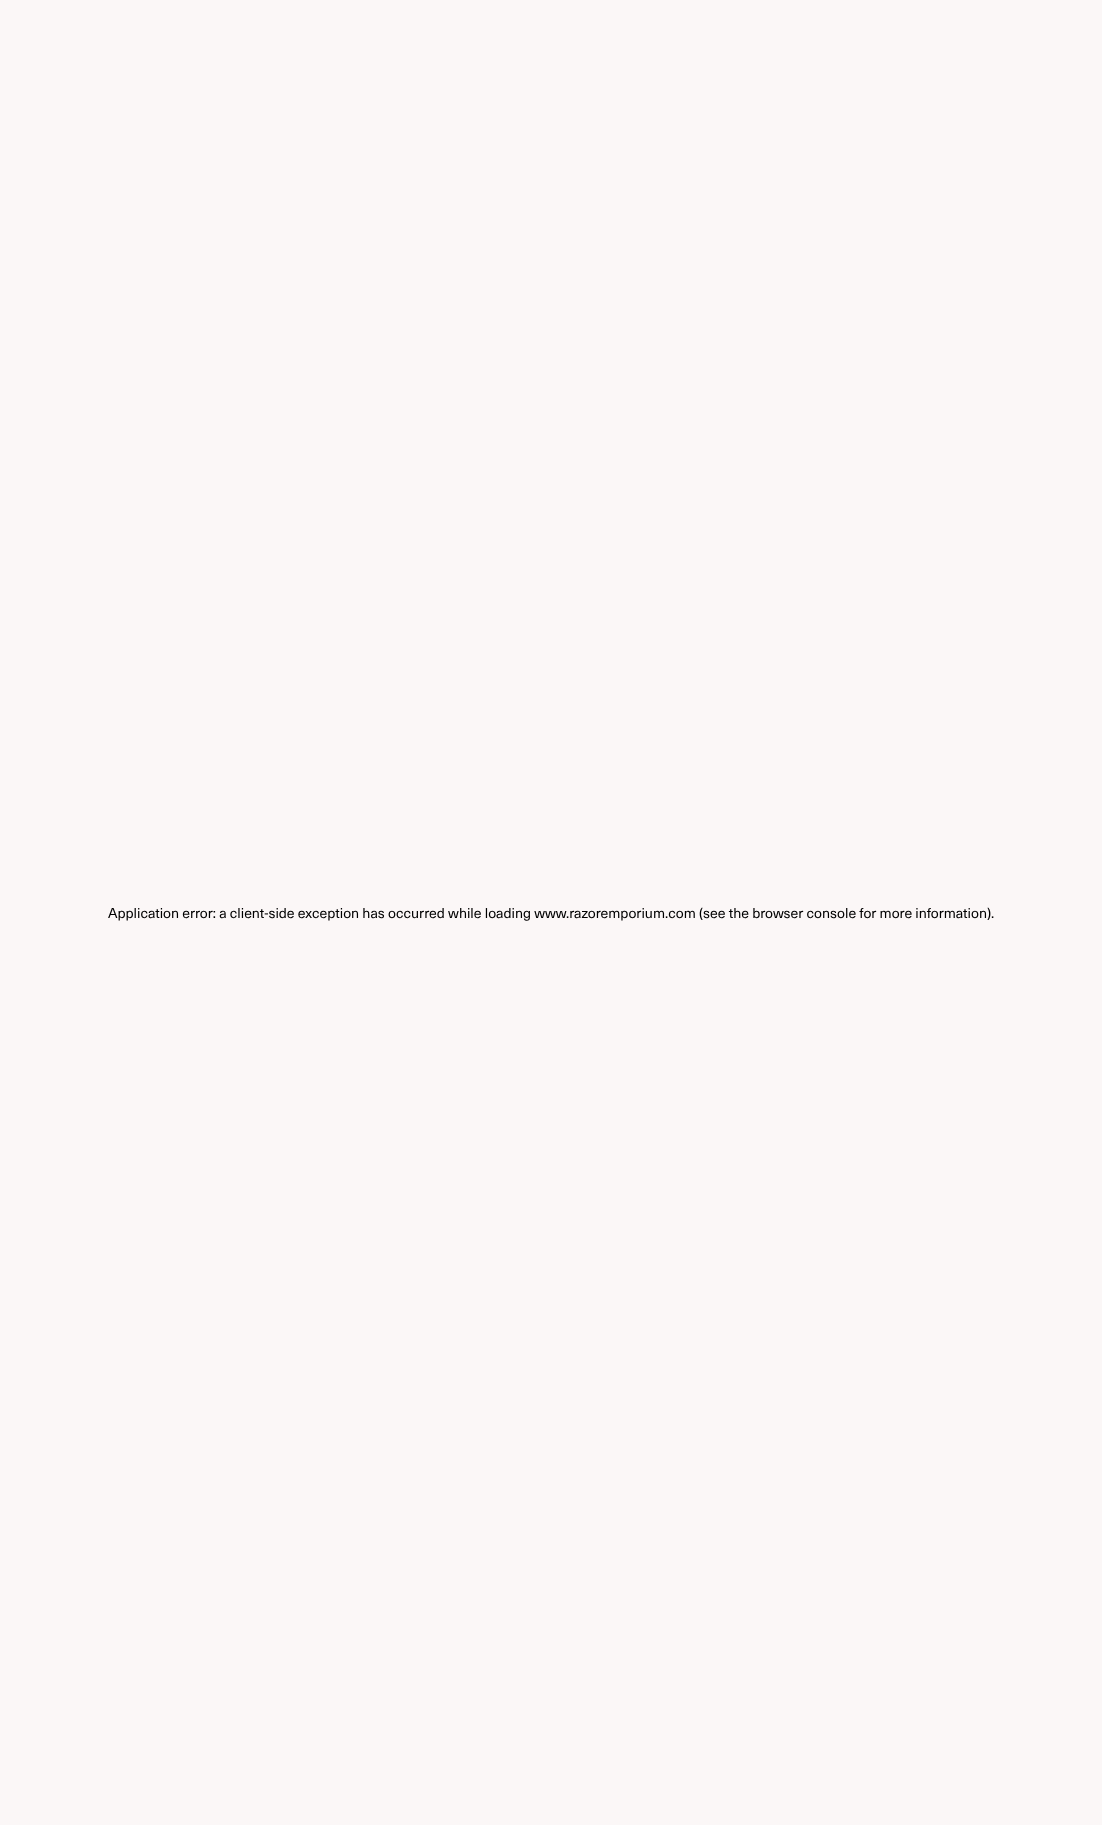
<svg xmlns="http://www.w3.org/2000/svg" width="1102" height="1825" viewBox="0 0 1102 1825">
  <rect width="100%" height="100%" fill="#fbf7f7"/>
  <text x="108" y="918" font-family="'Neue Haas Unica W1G'" font-size="14" fill="#000">Application error: a client-side exception has occurred while loading www.razoremporium.com (see the browser console for more information).</text>
</svg>
